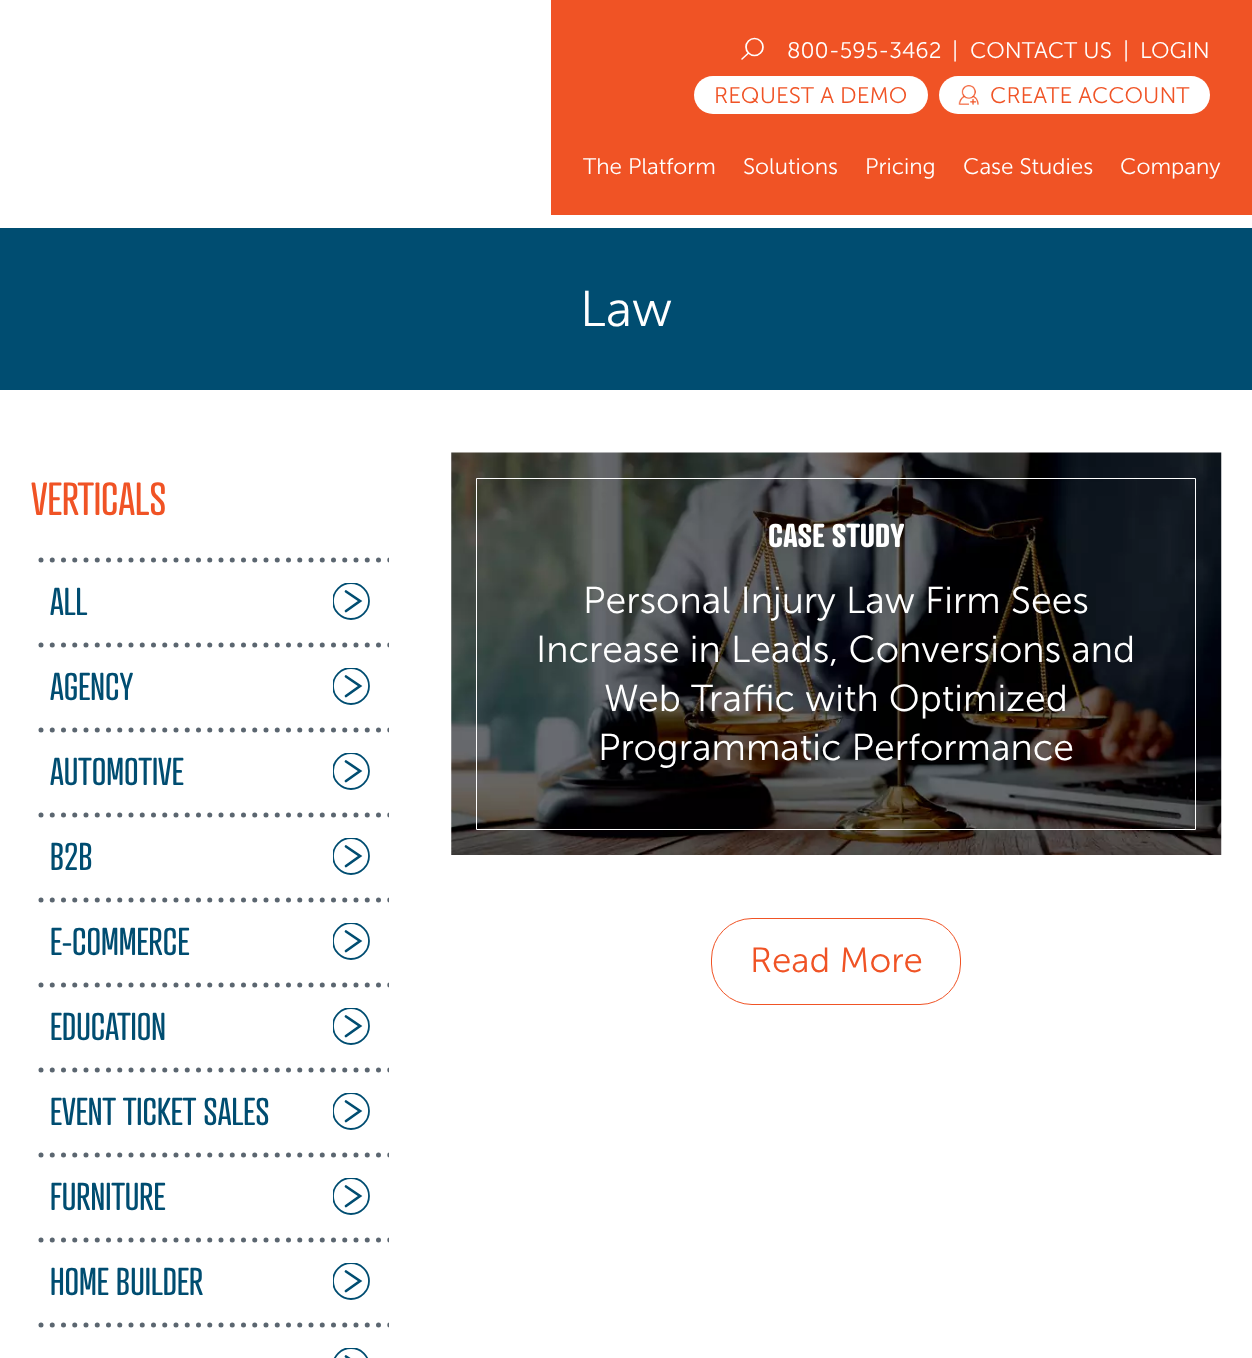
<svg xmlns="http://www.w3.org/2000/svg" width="1252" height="1358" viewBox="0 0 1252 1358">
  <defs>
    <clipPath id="clip1"><path d="M31 554h358v12H31z"/></clipPath>
    <clipPath id="clip2"><path d="M333 583h37v37H333z"/></clipPath>
    <clipPath id="clip3"><path d="M31 639h358v12H31z"/></clipPath>
    <clipPath id="clip4"><path d="M333 668h37v37H333z"/></clipPath>
    <clipPath id="clip5"><path d="M31 724h358v12H31z"/></clipPath>
    <clipPath id="clip6"><path d="M333 753h37v37H333z"/></clipPath>
    <clipPath id="clip7"><path d="M31 809h358v12H31z"/></clipPath>
    <clipPath id="clip8"><path d="M333 838h37v37H333z"/></clipPath>
    <clipPath id="clip9"><path d="M31 894h358v12H31z"/></clipPath>
    <clipPath id="clip10"><path d="M333 923h37v37H333z"/></clipPath>
    <clipPath id="clip11"><path d="M31 979h358v12H31z"/></clipPath>
    <clipPath id="clip12"><path d="M333 1008h37v37H333z"/></clipPath>
    <clipPath id="clip13"><path d="M31 1064h358v12H31z"/></clipPath>
    <clipPath id="clip14"><path d="M333 1093h37v37H333z"/></clipPath>
    <clipPath id="clip15"><path d="M31 1149h358v12H31z"/></clipPath>
    <clipPath id="clip16"><path d="M333 1178h37v37H333z"/></clipPath>
    <clipPath id="clip17"><path d="M31 1234h358v12H31z"/></clipPath>
    <clipPath id="clip18"><path d="M333 1263h37v37H333z"/></clipPath>
    <clipPath id="clip19"><path d="M31 1319h358v12H31z"/></clipPath>
    <clipPath id="clip20"><path d="M333 1348h37v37H333z"/></clipPath>
  </defs>
  <rect width="100%" height="100%" fill="#fff"/>
  <path d="M551 0h701v215H551z" fill="#f05325"/>
  <circle cx="754.5" cy="47" r="8.5" fill="none" stroke="#fff" stroke-width="1.7"/>
  <path d="M748.5 53L742 59" fill="none" stroke="#fff" stroke-width="1.5" stroke-linecap="round"/>
  <rect x="694" y="76" width="234" height="38" rx="19" fill="#fff"/>
  <rect x="939" y="76" width="271" height="38" rx="19" fill="#fff"/>
  <image x="958" y="85" width="21" height="20" href="img/1.png"/>
  <path d="M0 228h1252v162H0z" fill="#004d71"/>
  <g clip-path="url(#clip1)">
    <path d="M41 560H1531" fill="none" stroke="#5b6670" stroke-width="5" stroke-linecap="round" stroke-dasharray="0 11.25"/>
  </g>
  <g clip-path="url(#clip2)">
    <circle cx="351" cy="601" r="18" fill="none" stroke="#004d71" stroke-width="1.8"/>
  </g>
  <path d="M346 611L360 601L346 591.5" fill="none" stroke="#004d71" stroke-width="2.7" stroke-linecap="round"/>
  <g clip-path="url(#clip3)">
    <path d="M41 645H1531" fill="none" stroke="#5b6670" stroke-width="5" stroke-linecap="round" stroke-dasharray="0 11.25"/>
  </g>
  <g clip-path="url(#clip4)">
    <circle cx="351" cy="686" r="18" fill="none" stroke="#004d71" stroke-width="1.8"/>
  </g>
  <path d="M346 696L360 686L346 676.5" fill="none" stroke="#004d71" stroke-width="2.7" stroke-linecap="round"/>
  <g clip-path="url(#clip5)">
    <path d="M41 730H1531" fill="none" stroke="#5b6670" stroke-width="5" stroke-linecap="round" stroke-dasharray="0 11.25"/>
  </g>
  <g clip-path="url(#clip6)">
    <circle cx="351" cy="771" r="18" fill="none" stroke="#004d71" stroke-width="1.8"/>
  </g>
  <path d="M346 781L360 771L346 761.5" fill="none" stroke="#004d71" stroke-width="2.7" stroke-linecap="round"/>
  <g clip-path="url(#clip7)">
    <path d="M41 815H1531" fill="none" stroke="#5b6670" stroke-width="5" stroke-linecap="round" stroke-dasharray="0 11.25"/>
  </g>
  <g clip-path="url(#clip8)">
    <circle cx="351" cy="856" r="18" fill="none" stroke="#004d71" stroke-width="1.8"/>
  </g>
  <path d="M346 866L360 856L346 846.5" fill="none" stroke="#004d71" stroke-width="2.7" stroke-linecap="round"/>
  <g clip-path="url(#clip9)">
    <path d="M41 900H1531" fill="none" stroke="#5b6670" stroke-width="5" stroke-linecap="round" stroke-dasharray="0 11.25"/>
  </g>
  <g clip-path="url(#clip10)">
    <circle cx="351" cy="941" r="18" fill="none" stroke="#004d71" stroke-width="1.8"/>
  </g>
  <path d="M346 951L360 941L346 931.5" fill="none" stroke="#004d71" stroke-width="2.7" stroke-linecap="round"/>
  <g clip-path="url(#clip11)">
    <path d="M41 985H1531" fill="none" stroke="#5b6670" stroke-width="5" stroke-linecap="round" stroke-dasharray="0 11.25"/>
  </g>
  <g clip-path="url(#clip12)">
    <circle cx="351" cy="1026" r="18" fill="none" stroke="#004d71" stroke-width="1.8"/>
  </g>
  <path d="M346 1036L360 1026L346 1016.5" fill="none" stroke="#004d71" stroke-width="2.7" stroke-linecap="round"/>
  <g clip-path="url(#clip13)">
    <path d="M41 1070H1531" fill="none" stroke="#5b6670" stroke-width="5" stroke-linecap="round" stroke-dasharray="0 11.25"/>
  </g>
  <g clip-path="url(#clip14)">
    <circle cx="351" cy="1111" r="18" fill="none" stroke="#004d71" stroke-width="1.8"/>
  </g>
  <path d="M346 1121L360 1111L346 1101.5" fill="none" stroke="#004d71" stroke-width="2.7" stroke-linecap="round"/>
  <g clip-path="url(#clip15)">
    <path d="M41 1155H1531" fill="none" stroke="#5b6670" stroke-width="5" stroke-linecap="round" stroke-dasharray="0 11.25"/>
  </g>
  <g clip-path="url(#clip16)">
    <circle cx="351" cy="1196" r="18" fill="none" stroke="#004d71" stroke-width="1.8"/>
  </g>
  <path d="M346 1206L360 1196L346 1186.5" fill="none" stroke="#004d71" stroke-width="2.7" stroke-linecap="round"/>
  <g clip-path="url(#clip17)">
    <path d="M41 1240H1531" fill="none" stroke="#5b6670" stroke-width="5" stroke-linecap="round" stroke-dasharray="0 11.25"/>
  </g>
  <g clip-path="url(#clip18)">
    <circle cx="351" cy="1281" r="18" fill="none" stroke="#004d71" stroke-width="1.8"/>
  </g>
  <path d="M346 1291L360 1281L346 1271.5" fill="none" stroke="#004d71" stroke-width="2.7" stroke-linecap="round"/>
  <g clip-path="url(#clip19)">
    <path d="M41 1325H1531" fill="none" stroke="#5b6670" stroke-width="5" stroke-linecap="round" stroke-dasharray="0 11.25"/>
  </g>
  <g clip-path="url(#clip20)">
    <circle cx="351" cy="1366" r="18" fill="none" stroke="#004d71" stroke-width="1.8"/>
  </g>
  <path d="M346 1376L360 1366L346 1356.5" fill="none" stroke="#004d71" stroke-width="2.7" stroke-linecap="round"/>
  <image x="451" y="452" width="771" height="403" href="img/2.png"/>
  <path d="M476.5 478.5h719v351H476.5z" fill="none" stroke="#fff"/>
  <rect x="711.5" y="918.5" width="249" height="86" rx="40.5" fill="none" stroke="#f05325"/>
  <g font-family="'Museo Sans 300'" font-size="22.5" font-weight="300" fill="#fff">
    <text x="787" y="58">800-595-3462</text>
    <text x="952" y="58">|</text>
    <text x="970" y="58">CONTACT US</text>
    <text x="1123" y="58">|</text>
    <text x="1140" y="58">LOGIN</text>
  </g>
  <g font-family="'Museo Sans 300'" font-size="22.5" font-weight="300" fill="#f05325">
    <text x="714" y="103">REQUEST A DEMO</text>
    <text x="990" y="103">CREATE ACCOUNT</text>
  </g>
  <g font-family="'Museo Sans 300'" font-size="22.5" font-weight="300" fill="#fff">
    <text x="583" y="174">The Platform</text>
    <text x="743" y="174">Solutions</text>
    <text x="865" y="174">Pricing</text>
    <text x="963" y="174">Case Studies</text>
    <text x="1120" y="174">Company</text>
  </g>
  <text x="580" y="326" font-family="'Museo Sans 300'" font-size="50" font-weight="300" fill="#fff">Law</text>
  <text x="31" y="515" font-family="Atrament" font-size="45" fill="#f05325">VERTICALS</text>
  <g font-family="Atrament" font-size="37.5" fill="#004d71">
    <text x="50" y="615">ALL</text>
    <text x="50" y="700">AGENCY</text>
    <text x="50" y="785">AUTOMOTIVE</text>
    <text x="50" y="870">B2B</text>
    <text x="50" y="955">E-COMMERCE</text>
    <text x="50" y="1040">EDUCATION</text>
    <text x="50" y="1125">EVENT TICKET SALES</text>
    <text x="50" y="1210">FURNITURE</text>
    <text x="50" y="1295">HOME BUILDER</text>
  </g>
  <text x="768" y="547" font-family="Atrament" font-size="32" font-weight="bold" fill="#fff">CASE STUDY</text>
  <g font-family="'Museo Sans 300'" font-size="37.5" font-weight="300" fill="#fff">
    <text x="583" y="613">Personal Injury Law Firm Sees</text>
    <text x="536" y="662">Increase in Leads, Conversions and</text>
    <text x="604" y="711">Web Traffic with Optimized</text>
    <text x="598" y="760">Programmatic Performance</text>
  </g>
  <text x="750" y="972" font-family="'Museo Sans 300'" font-size="35" font-weight="300" fill="#f05325">Read More</text>
</svg>
